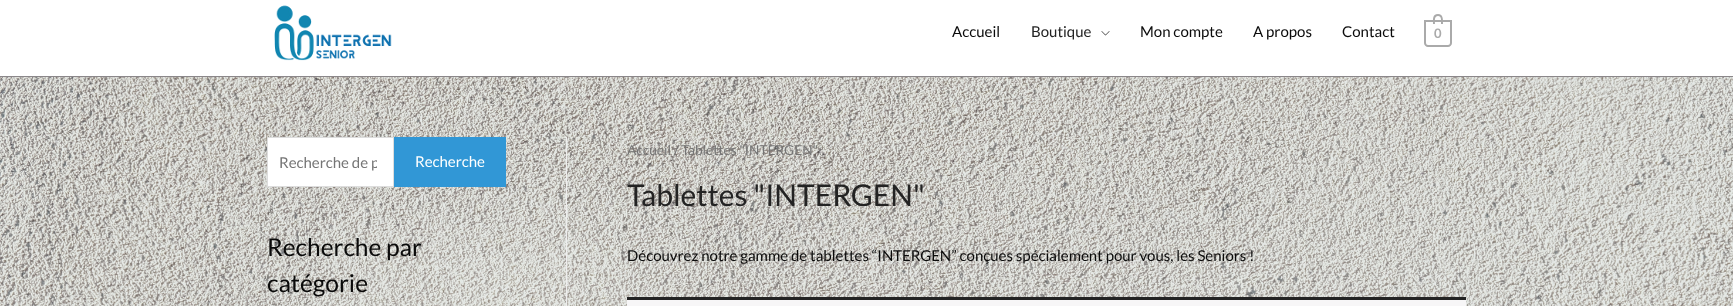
<svg xmlns="http://www.w3.org/2000/svg" width="1733" height="306" viewBox="0 0 1733 306">
  <defs>
    <clipPath id="clip1"><path d="M279 153h98v18H279z"/></clipPath>
  </defs>
  <rect width="100%" height="100%" fill="#fff"/>
  <image x="0" y="77" width="1733" height="229" href="img/1.png"/>
  <path d="M0 76h1733v1H0z" fill="#8b878a"/>
  <image x="274" y="5" width="118" height="56" href="img/2.png"/>
  <image x="1101" y="31" width="9" height="5" href="img/3.png"/>
  <path d="M1425 21H1451V43C1451 44.5 1449.5 46 1448 46H1428C1426.5 46 1425 44.5 1425 43Z" fill="none" stroke="#aaa" stroke-width="2"/>
  <path d="M1438 14C1443.5 14 1443 20 1443 24H1433C1433 20 1432 14 1438 14ZM1438 16C1442 16 1441 21.5 1441 24H1435C1435 21.5 1434 16 1438 16Z" fill="#aaa" fill-rule="evenodd"/>
  <path d="M566 137h1v169H566z" fill="#eee"/>
  <path d="M267.5 137.5h126v49H267.5z" fill="#fff" stroke="#ddd"/>
  <path d="M394 137h112v50H394z" fill="#3197d6"/>
  <path d="M627 300h839v6H627z" fill="#f7f6f7"/>
  <path d="M627 297h839v3H627z" fill="#232323"/>
  <text x="952" y="37" font-family="Lato" font-size="15" fill="#0a0a0a">Accueil</text>
  <text x="1031" y="37" font-family="Lato" font-size="15" fill="#232323">Boutique</text>
  <g font-family="Lato" font-size="15" fill="#0a0a0a">
    <text x="1140" y="37">Mon compte</text>
    <text x="1253" y="37">A propos</text>
    <text x="1342" y="37">Contact</text>
  </g>
  <text x="1434" y="38" font-family="Lato" font-size="13" font-weight="bold" fill="#aaa">0</text>
  <g clip-path="url(#clip1)">
    <text x="279" y="168" font-family="Lato" font-size="15" fill="#757575">Recherche de p</text>
  </g>
  <text x="415" y="167" font-family="Lato" font-size="15" fill="#fff">Recherche</text>
  <g font-family="Lato" font-size="24.5" fill="#0a0a0a">
    <text x="267" y="256">Recherche par</text>
    <text x="267" y="292">catégorie</text>
  </g>
  <text x="627" y="155" font-family="Lato" font-size="13.75" fill="#757575">Accueil / Tablettes "INTERGEN"</text>
  <text x="627" y="206" font-family="Lato" font-size="30" fill="#232323">Tablettes "INTERGEN"</text>
  <text x="627" y="261" font-family="Lato" font-size="15" fill="#0a0a0a">Découvrez notre gamme de tablettes “INTERGEN” conçues spécialement pour vous, les Seniors !</text>
</svg>
